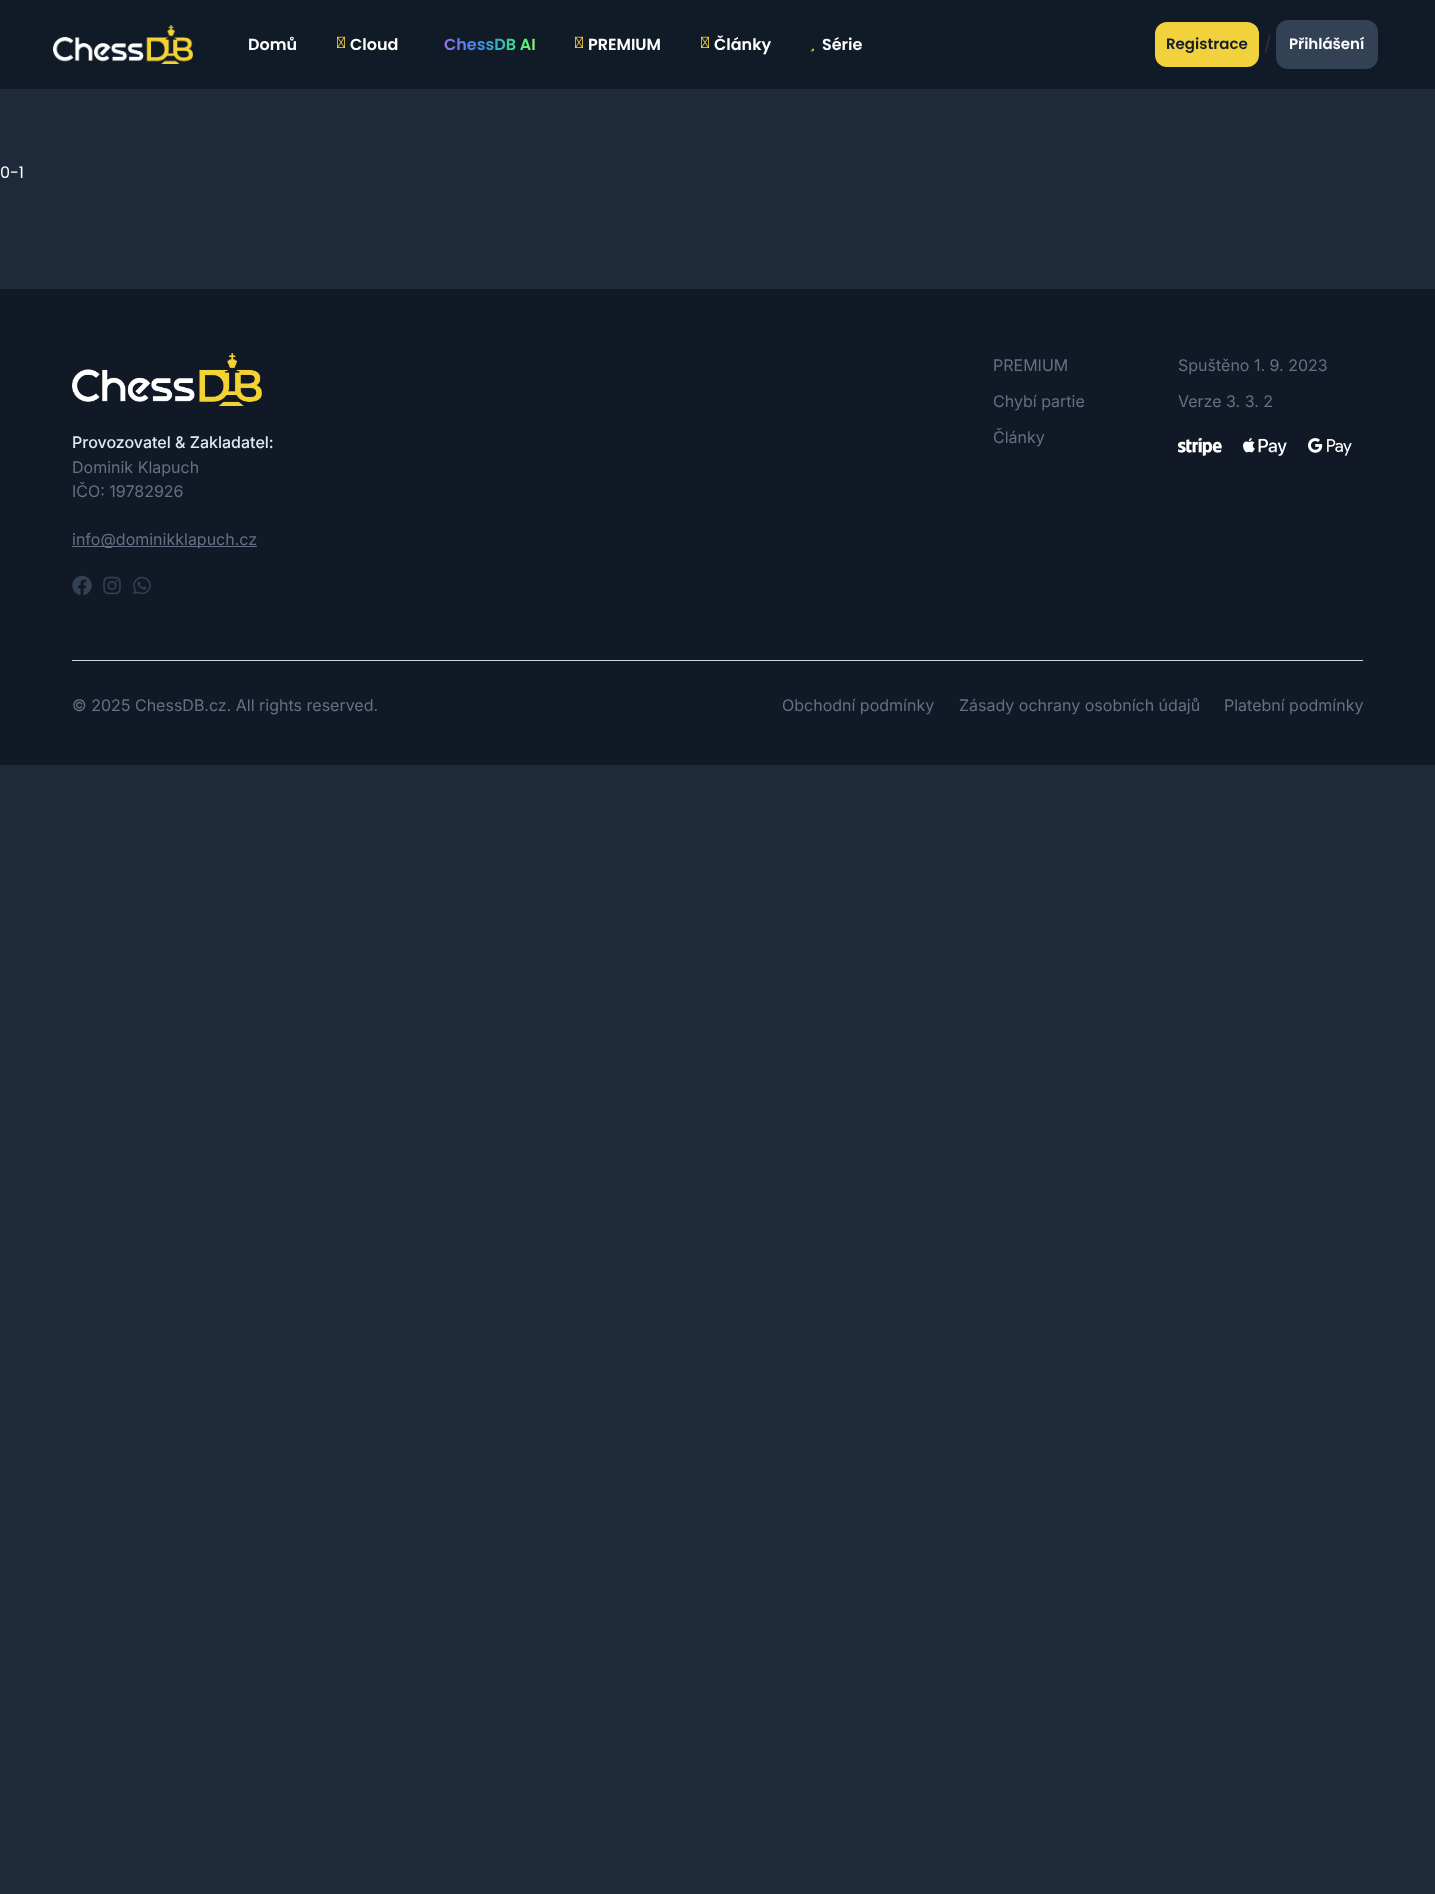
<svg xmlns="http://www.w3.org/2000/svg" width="1435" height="1894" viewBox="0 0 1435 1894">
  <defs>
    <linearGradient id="g1" gradientUnits="userSpaceOnUse" x1="419" y1="45" x2="555" y2="44"><stop offset="0" stop-color="#ff6ec4"/><stop offset="0.25" stop-color="#7873f5"/><stop offset="0.5" stop-color="#3498db"/><stop offset="0.75" stop-color="#43e97b"/><stop offset="1" stop-color="#f9f871"/></linearGradient>
  </defs>
  <rect width="100%" height="100%" fill="#1e293a"/>
  <path d="M0 0h1435v89H0z" fill="#111a27"/>
  <image x="53" y="25" width="140" height="39" href="img/1.png"/>
  <image x="337" y="36" width="8" height="12" href="img/2.png"/>
  <image x="575" y="36" width="8" height="12" href="img/2.png"/>
  <image x="701" y="36" width="8" height="12" href="img/2.png"/>
  <image x="810" y="48" width="4" height="4" href="img/3.png"/>
  <rect x="1155" y="22" width="104" height="45" rx="12" fill="#f2d23c"/>
  <rect x="1277" y="21" width="100" height="47" rx="11" fill="#334155" stroke="#334155" stroke-width="2"/>
  <path d="M0 289h1435v476H0z" fill="#111927"/>
  <image x="1178" y="437" width="44" height="19" href="img/4.png"/>
  <image x="1243" y="438" width="44" height="18" href="img/5.png"/>
  <image x="1308" y="438" width="44" height="18" href="img/6.png"/>
  <image x="72" y="353" width="190" height="53" href="img/7.png"/>
  <path d="M72 546h185v1H72z" fill="#667085"/>
  <image x="72" y="575" width="20" height="20" href="img/8.png"/>
  <image x="103" y="576" width="18" height="19" href="img/9.png"/>
  <image x="133" y="576" width="18" height="19" href="img/10.png"/>
  <path d="M72 660h1291v1H72z" fill="#d0d5dd"/>
  <g font-family="Poppins" font-size="16" font-weight="600" fill="#fff">
    <text x="248" y="50">Domů</text>
    <text x="350" y="50">Cloud</text>
  </g>
  <text x="444" y="50" font-family="Poppins" font-size="16" font-weight="600" fill="url(#g1)">ChessDB AI</text>
  <g font-family="Poppins" font-size="16" font-weight="600" fill="#fff">
    <text x="588" y="50">PREMIUM</text>
    <text x="714" y="50">Články</text>
    <text x="822" y="50">Série</text>
  </g>
  <text x="1166" y="49" font-family="Poppins" font-size="15" font-weight="600" fill="#171d2a">Registrace</text>
  <text x="1264" y="50" font-family="Poppins" font-size="16" fill="#333">/</text>
  <text x="1289" y="49" font-family="Poppins" font-size="15" font-weight="600" fill="#fff">Přihlášení</text>
  <text x="0" y="178" font-family="Poppins" font-size="16" fill="#fff">0-1</text>
  <g font-family="Inter" font-size="16" fill="#667085">
    <text x="993" y="371">PREMIUM</text>
    <text x="993" y="407">Chybí partie</text>
    <text x="993" y="443">Články</text>
    <text x="1178" y="371">Spuštěno 1. 9. 2023</text>
    <text x="1178" y="407">Verze 3. 3. 2</text>
  </g>
  <text x="72" y="448" font-family="Inter" font-size="16" font-weight="500" fill="#dee9ee">Provozovatel &amp; Zakladatel:</text>
  <g font-family="Inter" font-size="16" fill="#667085">
    <text x="72" y="473">Dominik Klapuch</text>
    <text x="72" y="497">IČO: 19782926</text>
    <text x="72" y="545">info@dominikklapuch.cz</text>
    <text x="72" y="711">© 2025 ChessDB.cz. All rights reserved.</text>
    <text x="782" y="711">Obchodní podmínky</text>
    <text x="959" y="711">Zásady ochrany osobních údajů</text>
    <text x="1224" y="711">Platební podmínky</text>
  </g>
</svg>
